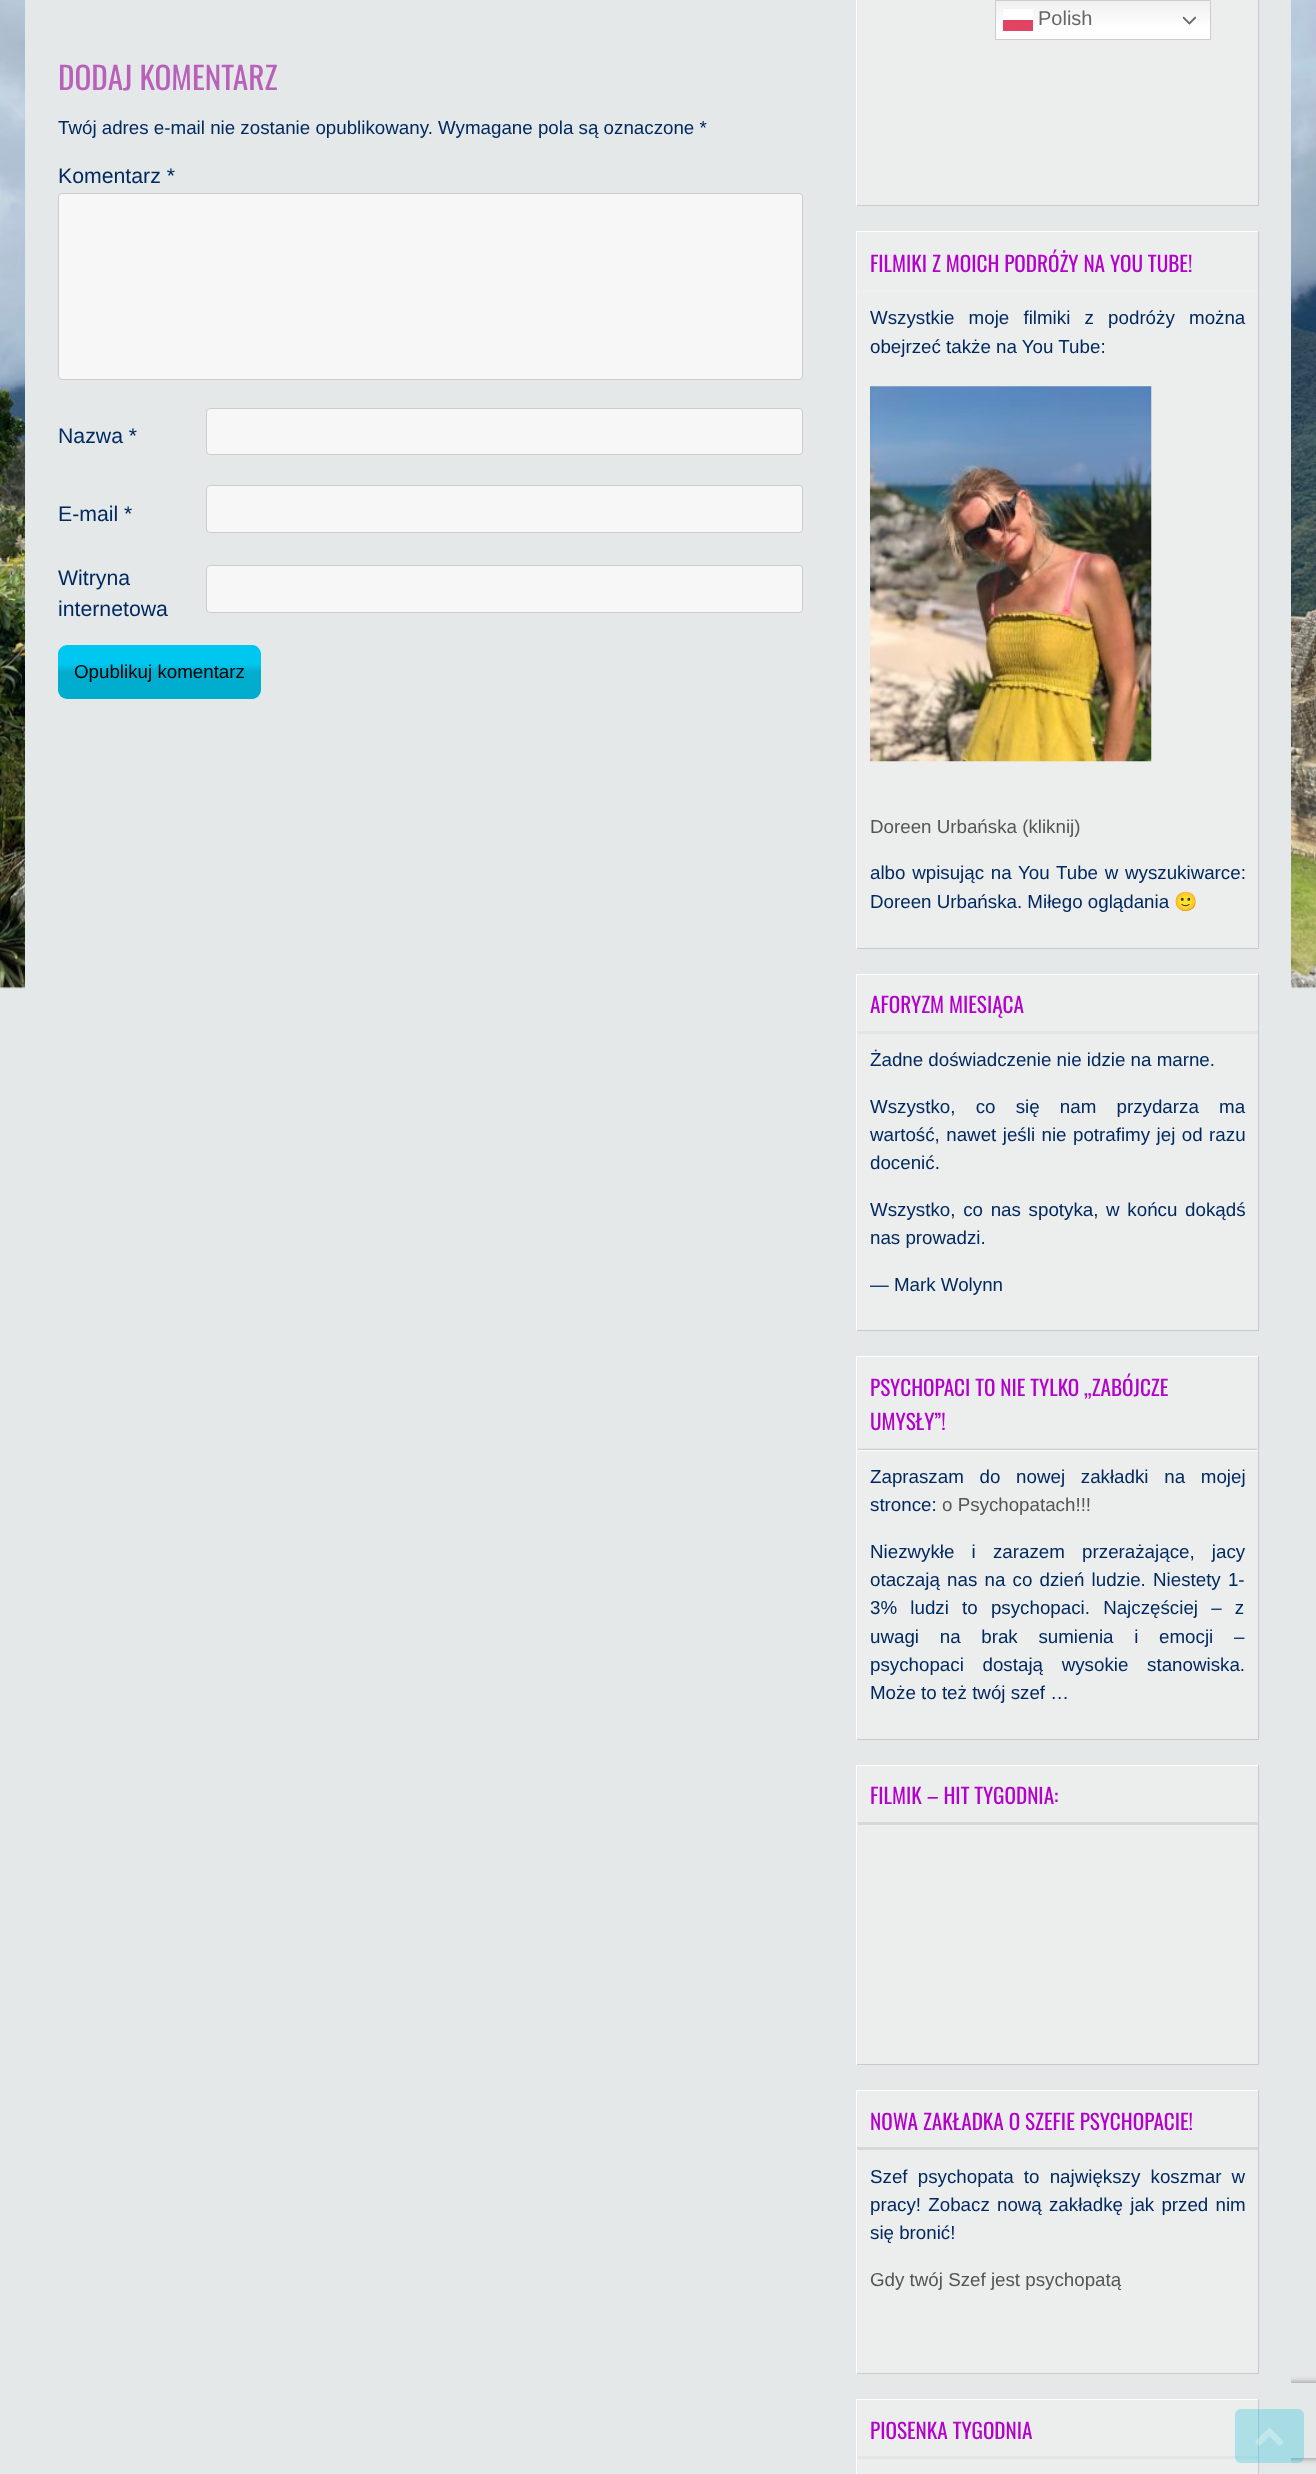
<svg xmlns="http://www.w3.org/2000/svg" width="1316" height="2474" viewBox="0 0 1316 2474">
  <defs>
    <clipPath id="clip1"><path d="M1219 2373H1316V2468H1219ZM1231.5 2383H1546.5C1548 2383 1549 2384 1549 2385.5V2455.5C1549 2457 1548 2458 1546.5 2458H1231.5C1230 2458 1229 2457 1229 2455.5V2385.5C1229 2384 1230 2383 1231.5 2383Z" clip-rule="evenodd"/></clipPath>
    <linearGradient id="g1" gradientUnits="userSpaceOnUse" x1="658" y1="-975" x2="658" y2="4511"><stop offset="0" stop-color="#e4e8e9"/><stop offset="0.89" stop-color="#e4e8e9"/><stop offset="1" stop-color="#d9ddde"/></linearGradient>
    <linearGradient id="g2" gradientUnits="userSpaceOnUse" x1="1103" y1="0" x2="1103" y2="40"><stop offset="0" stop-color="#efefef"/><stop offset="0.7" stop-color="#fff"/></linearGradient>
    <linearGradient id="g3" gradientUnits="userSpaceOnUse" x1="159" y1="699" x2="159" y2="645"><stop offset="0" stop-color="#00adcf"/><stop offset="0.5" stop-color="#00adcf"/><stop offset="0.65" stop-color="#00c7ef"/><stop offset="1" stop-color="#00c7ef"/></linearGradient>
  </defs>
  <rect width="100%" height="100%" fill="#e4e8e9"/>
  <image x="0" y="0" width="1316" height="989" href="img/2.png"/>
  <g clip-path="url(#clip1)">
    <rect x="1229" y="2383" width="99" height="75" rx="2.5" fill="#808080" filter="blur(3px)"/>
  </g>
  <path d="M25 0h1266v2464H25z" fill="url(#g1)"/>
  <path d="M857 0h401v205H857z" fill="#eceded"/>
  <path d="M996 1h214v38H996z" fill="url(#g2)"/>
  <path d="M995.5 0.5h215v39H995.5z" fill="none" stroke="#ccc"/>
  <path d="M1003 9h30v11H1003z" fill="#ffffffcc"/>
  <image x="1183" y="16" width="13" height="9" href="img/1.png"/>
  <path d="M1003 20h30v11H1003z" fill="#e34363"/>
  <rect x="58.5" y="193.5" width="744" height="186" rx="3.5" fill="#f7f7f7" stroke="#ccc"/>
  <rect x="206.5" y="408.5" width="596" height="46" rx="3.5" fill="#f7f7f7" stroke="#ccc"/>
  <rect x="206.5" y="485.5" width="596" height="47" rx="3.5" fill="#f7f7f7" stroke="#ccc"/>
  <rect x="206.5" y="565.5" width="596" height="47" rx="3.5" fill="#f7f7f7" stroke="#ccc"/>
  <rect x="58" y="645" width="203" height="54" rx="9" fill="url(#g3)"/>
  <path d="M1258 0h1v206H1258z" fill="#c9c9c9"/>
  <path d="M856 205h403v1H856z" fill="#c9c9c9"/>
  <path d="M856 0h1v206H856z" fill="#fff"/>
  <path d="M857 232h401v716H857z" fill="#eceded"/>
  <path d="M856 231h403v1H856z" fill="#fff"/>
  <path d="M1258 231h1v718H1258z" fill="#c9c9c9"/>
  <path d="M856 948h403v1H856z" fill="#c9c9c9"/>
  <path d="M856 231h1v718H856z" fill="#fff"/>
  <path d="M857 290h401v3H857z" fill="#efefef"/>
  <image x="870" y="386" width="282" height="376" href="img/3.png"/>
  <path d="M857 975h401v355H857z" fill="#eceded"/>
  <path d="M856 974h403v1H856z" fill="#fff"/>
  <path d="M1258 974h1v357H1258z" fill="#c9c9c9"/>
  <path d="M856 1330h403v1H856z" fill="#c9c9c9"/>
  <path d="M856 974h1v357H856z" fill="#fff"/>
  <path d="M857 1031h401v3H857z" fill="#e5e5e5"/>
  <path d="M857 1357h401v382H857z" fill="#eceded"/>
  <path d="M856 1356h403v1H856z" fill="#fff"/>
  <path d="M1258 1356h1v384H1258z" fill="#c9c9c9"/>
  <path d="M856 1739h403v1H856z" fill="#c9c9c9"/>
  <path d="M856 1356h1v384H856z" fill="#fff"/>
  <image x="857" y="1448" width="401" height="4" href="img/4.png"/>
  <path d="M857 1766h401v298H857z" fill="#eceded"/>
  <path d="M856 1765h403v1H856z" fill="#fff"/>
  <path d="M1258 1765h1v300H1258z" fill="#c9c9c9"/>
  <path d="M856 2064h403v1H856z" fill="#c9c9c9"/>
  <path d="M856 1765h1v300H856z" fill="#fff"/>
  <path d="M858 1822h400v3H858z" fill="#d8d8d8"/>
  <path d="M857 2091h401v282H857z" fill="#eceded"/>
  <path d="M856 2090h403v1H856z" fill="#fff"/>
  <path d="M1258 2090h1v284H1258z" fill="#c9c9c9"/>
  <path d="M856 2373h403v1H856z" fill="#c9c9c9"/>
  <path d="M856 2090h1v284H856z" fill="#fff"/>
  <path d="M857 2147h401v3H857z" fill="#d8d8d8"/>
  <path d="M857 2400h401v74H857z" fill="#eceded"/>
  <path d="M856 2399h403v1H856z" fill="#fff"/>
  <path d="M1258 2399h1v75H1258z" fill="#c9c9c9"/>
  <path d="M856 2399h1v75H856z" fill="#fff"/>
  <path d="M857 2456h401v3H857z" fill="#e5e5e5"/>
  <rect x="1235" y="2409" width="69" height="54" rx="6" fill="#1cc1db4d"/>
  <image x="1255" y="2428" width="29" height="18" href="img/5.png"/>
  <text x="1038" y="25" font-family="Liberation Sans" font-size="20" fill="#666">Polish</text>
  <text x="58" y="90" font-family="Oswald" font-size="31.25" fill="#b860ba">DODAJ KOMENTARZ</text>
  <text x="58" y="134" font-family="Liberation Sans" font-size="18.75" fill="#002960">Twój adres e-mail nie zostanie opublikowany. Wymagane pola są oznaczone *</text>
  <g font-family="Liberation Sans" font-size="21.25" fill="#002960">
    <text x="58" y="183">Komentarz *</text>
    <text x="58" y="443">Nazwa *</text>
    <text x="58" y="521">E-mail *</text>
    <text x="58" y="585">Witryna</text>
    <text x="58" y="616">internetowa</text>
  </g>
  <text x="74" y="678" font-family="Liberation Sans" font-size="18.75" fill="#000">Opublikuj komentarz</text>
  <text x="870" y="272" font-family="Oswald" font-size="21.25" fill="#b400cc">FILMIKI Z MOICH PODRÓŻY NA YOU TUBE!</text>
  <g font-family="Liberation Sans" font-size="18.75" fill="#002960">
    <text x="870" y="324" word-spacing="9">Wszystkie moje filmiki z podróży można</text>
    <text x="870" y="353">obejrzeć także na You Tube:</text>
  </g>
  <text x="870" y="833" font-family="Liberation Sans" font-size="18.75" fill="#555">Doreen Urbańska (kliknij)</text>
  <g font-family="Liberation Sans" font-size="18.75" fill="#002960">
    <text x="870" y="879" word-spacing="1.5">albo wpisując na You Tube w wyszukiwarce:</text>
    <text x="870" y="908">Doreen Urbańska. Miłego oglądania</text>
  </g>
  <text x="1174" y="908" font-family="Noto Color Emoji" font-size="18.75" fill="#002960">🙂</text>
  <text x="870" y="1013" font-family="Oswald" font-size="21.25" fill="#b400cc">AFORYZM MIESIĄCA</text>
  <g font-family="Liberation Sans" font-size="18.75" fill="#002960">
    <text x="870" y="1066">Żadne doświadczenie nie idzie na marne.</text>
    <text x="870" y="1113" word-spacing="15">Wszystko, co się nam przydarza ma</text>
    <text x="870" y="1141" word-spacing="1.25">wartość, nawet jeśli nie potrafimy jej od razu</text>
    <text x="870" y="1169">docenić.</text>
    <text x="870" y="1216" word-spacing="2.5">Wszystko, co nas spotyka, w końcu dokądś</text>
    <text x="870" y="1244">nas prowadzi.</text>
    <text x="870" y="1291">— Mark Wolynn</text>
  </g>
  <g font-family="Oswald" font-size="21.25" fill="#b400cc">
    <text x="870" y="1396">PSYCHOPACI TO NIE TYLKO „ZABÓJCZE</text>
    <text x="870" y="1430">UMYSŁY”!</text>
  </g>
  <g font-family="Liberation Sans" font-size="18.75" fill="#002960">
    <text x="870" y="1483" word-spacing="10.5">Zapraszam do nowej zakładki na mojej</text>
    <text x="870" y="1511">stronce:</text>
  </g>
  <text x="942" y="1511" font-family="Liberation Sans" font-size="18.75" fill="#555">o Psychopatach!!!</text>
  <g font-family="Liberation Sans" font-size="18.75" fill="#002960">
    <text x="870" y="1558" word-spacing="12">Niezwykłe i zarazem przerażające, jacy</text>
    <text x="870" y="1586" word-spacing="2">otaczają nas na co dzień ludzie. Niestety 1-</text>
    <text x="870" y="1614" word-spacing="8">3% ludzi to psychopaci. Najczęściej – z</text>
    <text x="870" y="1643" word-spacing="15.5">uwagi na brak sumienia i emocji –</text>
    <text x="870" y="1671" word-spacing="13.5">psychopaci dostają wysokie stanowiska.</text>
    <text x="870" y="1699">Może to też twój szef …</text>
  </g>
  <g font-family="Oswald" font-size="21.25" fill="#b400cc">
    <text x="870" y="1804">FILMIK – HIT TYGODNIA:</text>
    <text x="870" y="2130">NOWA ZAKŁADKA O SZEFIE PSYCHOPACIE!</text>
  </g>
  <g font-family="Liberation Sans" font-size="18.75" fill="#002960">
    <text x="870" y="2183" word-spacing="5">Szef psychopata to największy koszmar w</text>
    <text x="870" y="2211" word-spacing="2">pracy! Zobacz nową zakładkę jak przed nim</text>
    <text x="870" y="2239">się bronić!</text>
  </g>
  <text x="870" y="2286" font-family="Liberation Sans" font-size="18.75" fill="#555">Gdy twój Szef jest psychopatą</text>
  <text x="870" y="2439" font-family="Oswald" font-size="21.25" fill="#b400cc">PIOSENKA TYGODNIA</text>
</svg>
